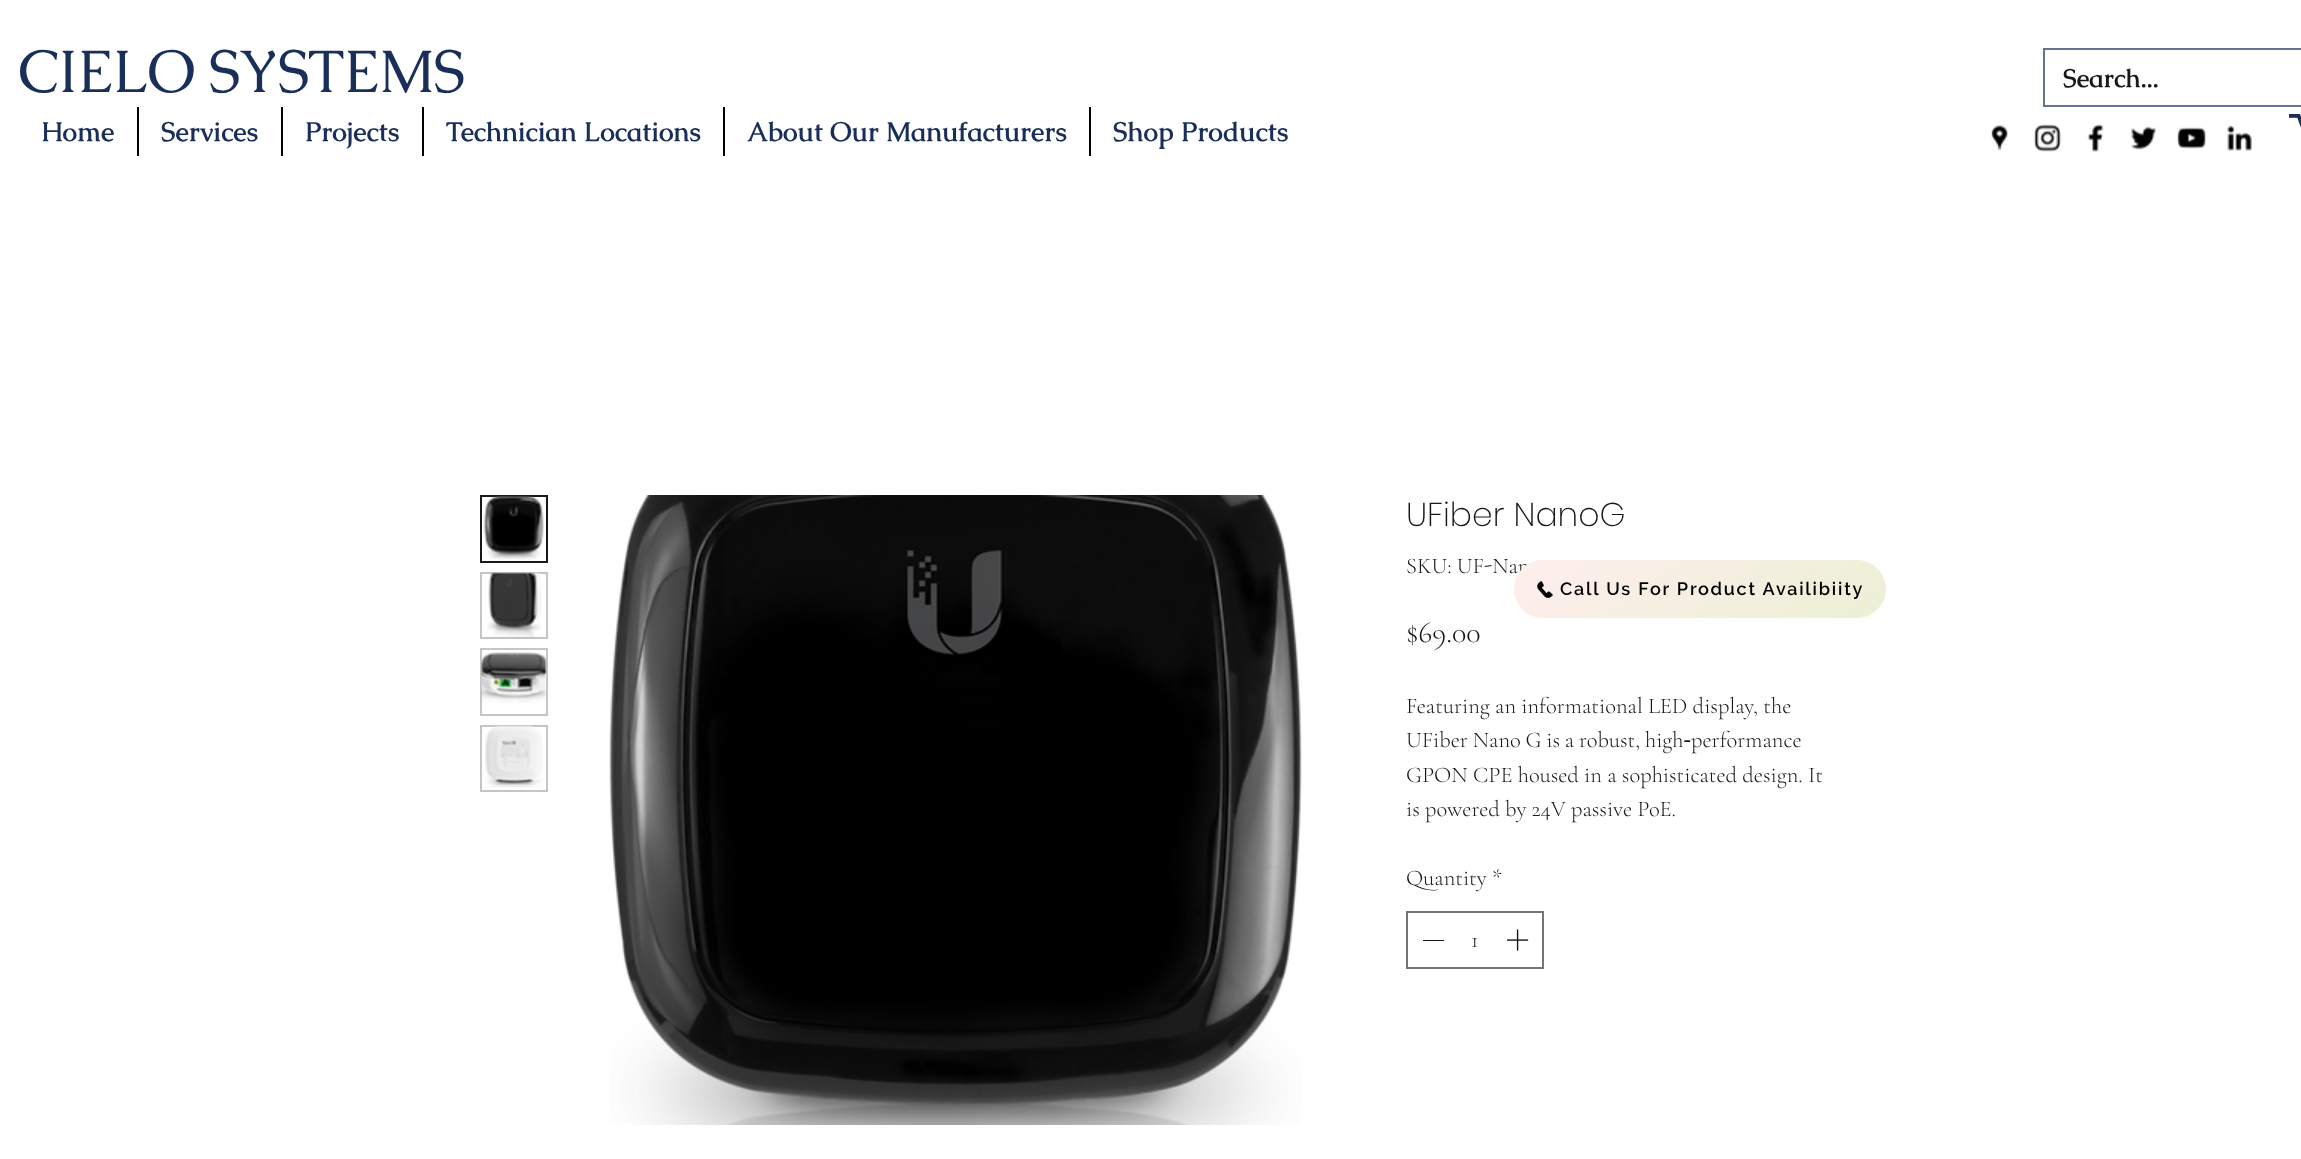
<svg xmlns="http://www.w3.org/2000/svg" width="2301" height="1159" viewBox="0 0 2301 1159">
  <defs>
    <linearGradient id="g1" gradientUnits="userSpaceOnUse" x1="1625" y1="482" x2="1774" y2="696"><stop offset="0" stop-color="#fee"/><stop offset="1" stop-color="#fee" stop-opacity="0"/></linearGradient>
  </defs>
  <rect width="100%" height="100%" fill="#fff"/>
  <path d="M2044 49h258v57H2044z" fill="none" stroke="#667390" stroke-width="2"/>
  <path d="M137 107h2v49H137z" fill="#000"/>
  <path d="M281 107h2v49H281z" fill="#000"/>
  <path d="M422 107h2v49H422z" fill="#000"/>
  <path d="M723 107h2v49H723z" fill="#000"/>
  <path d="M1089 107h2v49H1089z" fill="#000"/>
  <image x="1991" y="125" width="17" height="26" href="img/1.png"/>
  <image x="2034" y="124" width="28" height="28" href="img/2.png"/>
  <image x="2087" y="124" width="17" height="29" href="img/3.png"/>
  <image x="2131" y="126" width="25" height="24" href="img/4.png"/>
  <image x="2177" y="127" width="29" height="22" href="img/5.png"/>
  <image x="2227" y="125" width="25" height="26" href="img/6.png"/>
  <image x="2289" y="114" width="12" height="14" href="img/7.png"/>
  <path d="M481 496h66v66H481z" fill="none" stroke="#181818" stroke-width="2"/>
  <image x="483" y="496" width="61" height="64" href="img/8.png"/>
  <path d="M481 573h66v65H481z" fill="none" stroke="#c5c5c5" stroke-width="2"/>
  <image x="487" y="572" width="55" height="66" href="img/9.png"/>
  <path d="M481 649h66v66H481z" fill="none" stroke="#c5c5c5" stroke-width="2"/>
  <image x="481" y="651" width="66" height="52" href="img/10.png"/>
  <path d="M481 726h66v65H481z" fill="none" stroke="#c5c5c5" stroke-width="2"/>
  <image x="484" y="725" width="59" height="63" href="img/11.png"/>
  <image x="609" y="495" width="693" height="630" href="img/12.png"/>
  <path d="M1407 912h136v56H1407z" fill="none" stroke="#747474" stroke-width="2"/>
  <path d="M1423 940h21v1H1423z" fill="#181818"/>
  <image x="1507" y="929" width="22" height="22" href="img/13.png"/>
  <text x="18" y="92" font-family="Caudex" font-size="60" letter-spacing="-1.25" fill="#1a2e5a">CIELO SYSTEMS</text>
  <text x="2063" y="87" font-family="Caudex" font-size="25.5" font-weight="bold" fill="#181818">Search...</text>
  <g font-family="Caudex" font-size="27" font-weight="bold" fill="#1a2e5a">
    <text x="41" y="141">Home</text>
    <text x="161" y="141">Services</text>
    <text x="305" y="141">Projects</text>
    <text x="446" y="141">Technician Locations</text>
    <text x="747" y="141">About Our Manufacturers</text>
    <text x="1113" y="141">Shop Products</text>
  </g>
  <text x="1406" y="526" font-family="Poppins" font-size="33" font-weight="200" fill="#181818">UFiber NanoG</text>
  <text x="1406" y="573" font-family="Cormorant Garamond" font-size="22.5" font-weight="300" fill="#181818">SKU: UF-Nan</text>
  <text x="1406" y="642" font-family="Cormorant Garamond" font-size="30" font-weight="300" fill="#181818">$69.00</text>
  <g font-family="Cormorant Garamond" font-size="22.5" font-weight="300" fill="#181818">
    <text x="1406" y="713">Featuring an informational LED display, the</text>
    <text x="1406" y="747" word-spacing="-0.5">UFiber Nano G is a robust, high‑performance</text>
    <text x="1406" y="782">GPON CPE housed in a sophisticated design. It</text>
    <text x="1406" y="816">is powered by 24V passive PoE.</text>
    <text x="1406" y="885">Quantity</text>
    <text x="1492" y="885">*</text>
    <text x="1471" y="947">1</text>
  </g>
  <rect x="1514" y="560" width="372" height="58" rx="29" fill="#ebf0d4"/>
  <rect x="1514" y="560" width="372" height="58" rx="29" fill="url(#g1)"/>
  <image x="1537" y="581" width="16" height="17" href="img/14.png"/>
  <text x="1560" y="595" font-family="Raleway" font-size="18" font-weight="600" letter-spacing="1.8" fill="#000">Call Us For Product Availibiity</text>
</svg>
